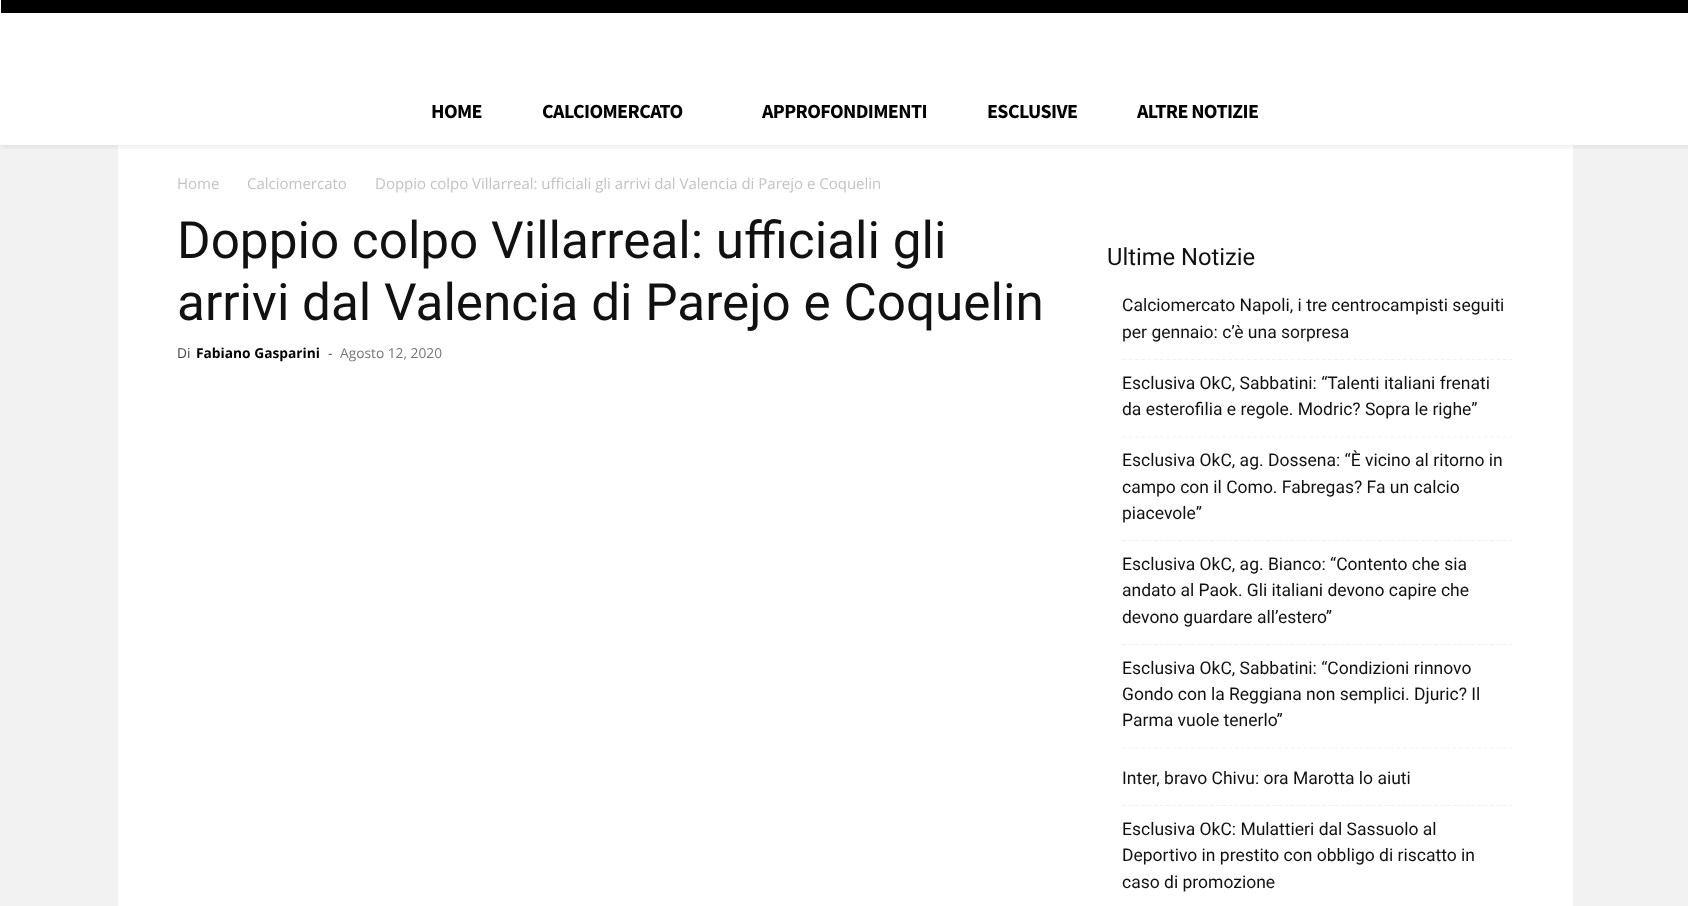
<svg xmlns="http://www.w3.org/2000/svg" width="1688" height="906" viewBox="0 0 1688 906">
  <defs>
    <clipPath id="clip1"><path d="M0 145h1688v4H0z"/></clipPath>
  </defs>
  <rect width="100%" height="100%" fill="#f2f2f2"/>
  <path d="M0 0h1688v145H0z" fill="#fff"/>
  <path d="M1 0h1687v13H1z" fill="#000"/>
  <path d="M118 145h1455v761H118z" fill="#fff"/>
  <g clip-path="url(#clip1)">
    <path d="M1 79h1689v69H1z" fill="#0000000f" filter="blur(2.5px)"/>
  </g>
  <path d="M1122.5 359.5H1512.5" fill="none" stroke="#f1f1f1" stroke-width="1.2" stroke-dasharray="3.75 2.48"/>
  <path d="M1122.5 437H1512.5" fill="none" stroke="#f1f1f1" stroke-width="1.2" stroke-dasharray="3.75 2.48"/>
  <path d="M1122.5 540.5H1512.5" fill="none" stroke="#f1f1f1" stroke-width="1.2" stroke-dasharray="3.75 2.48"/>
  <path d="M1122.5 644.5H1512.5" fill="none" stroke="#f1f1f1" stroke-width="1.2" stroke-dasharray="3.75 2.48"/>
  <path d="M1122.5 748H1512.5" fill="none" stroke="#f1f1f1" stroke-width="1.2" stroke-dasharray="3.75 2.48"/>
  <path d="M1122.5 805.5H1512.5" fill="none" stroke="#f1f1f1" stroke-width="1.2" stroke-dasharray="3.75 2.48"/>
  <g font-family="Source Sans Pro" font-size="20" font-weight="bold" letter-spacing="-0.6" fill="#000">
    <text x="431" y="118">HOME</text>
    <text x="542" y="118">CALCIOMERCATO</text>
    <text x="762" y="118">APPROFONDIMENTI</text>
    <text x="987" y="118">ESCLUSIVE</text>
    <text x="1137" y="118">ALTRE NOTIZIE</text>
  </g>
  <g font-family="Open Sans" font-size="15" fill="#c3c3c3">
    <text x="177" y="189">Home</text>
    <text x="247" y="189">Calciomercato</text>
    <text x="375" y="189">Doppio colpo Villarreal: ufficiali gli arrivi dal Valencia di Parejo e Coquelin</text>
  </g>
  <g font-family="Roboto" font-size="51.25" fill="#111">
    <text x="177" y="258">Doppio colpo Villarreal: ufficiali gli</text>
    <text x="177" y="320">arrivi dal Valencia di Parejo e Coquelin</text>
  </g>
  <text x="177" y="358" font-family="Open Sans" font-size="13.75" fill="#444">Di</text>
  <text x="196" y="358" font-family="Open Sans" font-size="13.75" font-weight="bold" fill="#000">Fabiano Gasparini</text>
  <text x="328" y="358" font-family="Open Sans" font-size="13.75" fill="#444">-</text>
  <text x="340" y="358" font-family="Open Sans" font-size="13.75" fill="#767676">Agosto 12, 2020</text>
  <text x="1107" y="265" font-family="Roboto" font-size="23.75" fill="#111">Ultime Notizie</text>
  <g font-family="Roboto" font-size="17.5" fill="#111">
    <text x="1122" y="311">Calciomercato Napoli, i tre centrocampisti seguiti</text>
    <text x="1122" y="338">per gennaio: c’è una sorpresa</text>
    <text x="1122" y="389">Esclusiva OkC, Sabbatini: “Talenti italiani frenati</text>
    <text x="1122" y="415">da esterofilia e regole. Modric? Sopra le righe”</text>
    <text x="1122" y="466">Esclusiva OkC, ag. Dossena: “È vicino al ritorno in</text>
    <text x="1122" y="493">campo con il Como. Fabregas? Fa un calcio</text>
    <text x="1122" y="519">piacevole”</text>
    <text x="1122" y="570">Esclusiva OkC, ag. Bianco: “Contento che sia</text>
    <text x="1122" y="596">andato al Paok. Gli italiani devono capire che</text>
    <text x="1122" y="623">devono guardare all’estero”</text>
    <text x="1122" y="674">Esclusiva OkC, Sabbatini: “Condizioni rinnovo</text>
    <text x="1122" y="700">Gondo con la Reggiana non semplici. Djuric? Il</text>
    <text x="1122" y="726">Parma vuole tenerlo”</text>
    <text x="1122" y="784">Inter, bravo Chivu: ora Marotta lo aiuti</text>
    <text x="1122" y="835">Esclusiva OkC: Mulattieri dal Sassuolo al</text>
    <text x="1122" y="861">Deportivo in prestito con obbligo di riscatto in</text>
    <text x="1122" y="888">caso di promozione</text>
  </g>
</svg>
